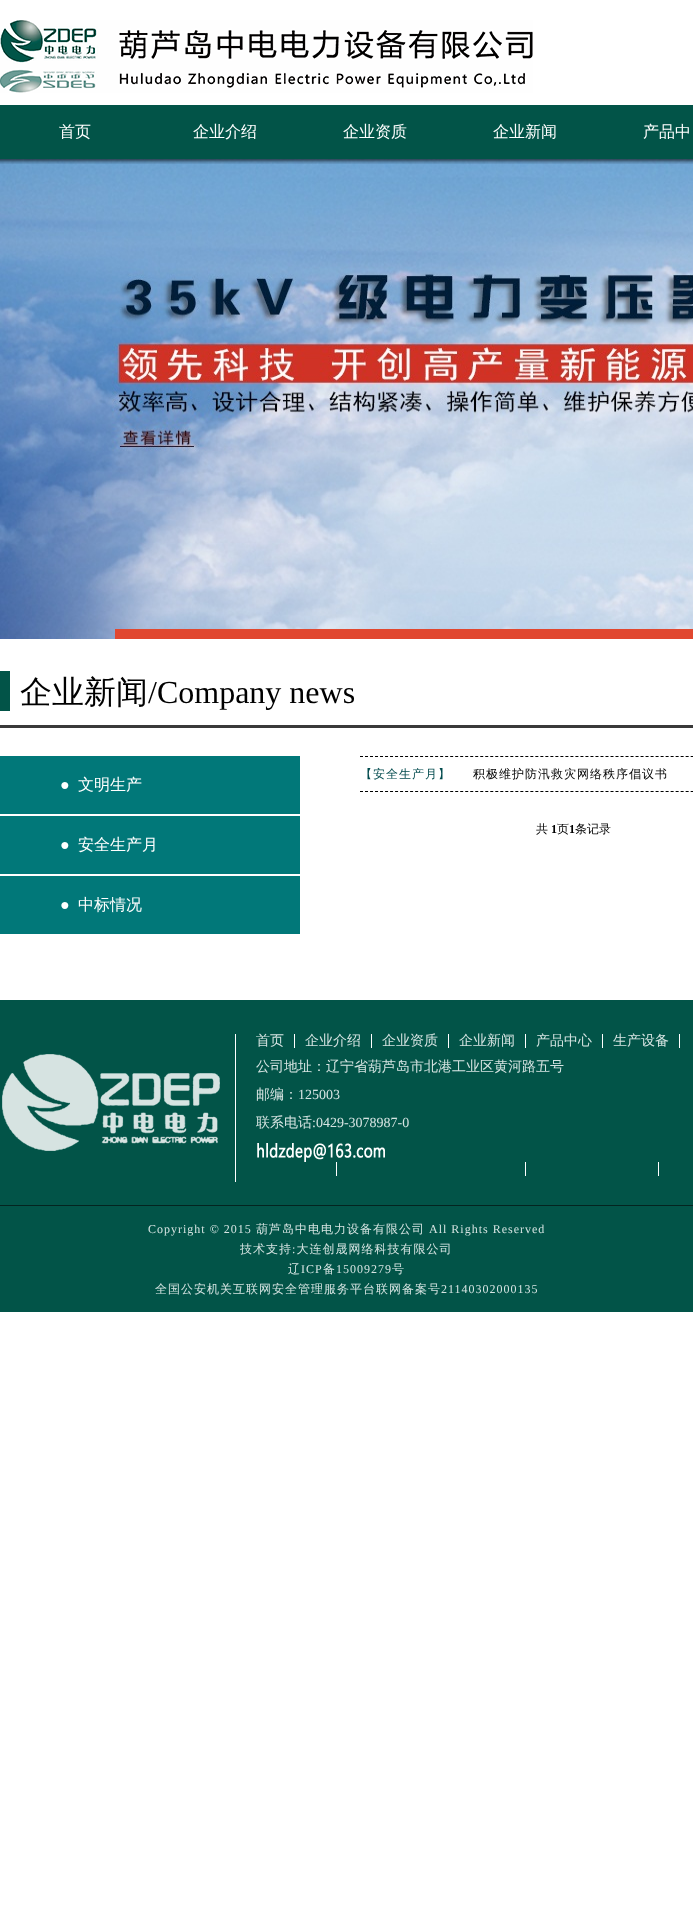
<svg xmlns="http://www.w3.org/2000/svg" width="693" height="1916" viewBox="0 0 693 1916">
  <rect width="100%" height="100%" fill="#fff"/>
  <image x="0" y="20" width="533" height="73" href="img/1.png"/>
  <image x="0" y="159" width="693" height="480" href="img/3.png"/>
  <image x="0" y="105" width="693" height="59" href="img/2.png"/>
  <path d="M115 629h578v10H115z" fill="#e1472f"/>
  <path d="M0 671h10v40H0z" fill="#025448"/>
  <path d="M0 725h693v3H0z" fill="#393939"/>
  <path d="M0 756h300v58H0z" fill="#017879"/>
  <path d="M0 816h300v58H0z" fill="#017879"/>
  <path d="M0 876h300v58H0z" fill="#017879"/>
  <path d="M360 756.5H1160" fill="none" stroke="#000" stroke-dasharray="3 2.01"/>
  <path d="M360 791.5H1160" fill="none" stroke="#000" stroke-dasharray="3 2.01"/>
  <path d="M0 1000h693v205H0z" fill="#025448"/>
  <image x="2" y="1054" width="218" height="97" href="img/4.png"/>
  <path d="M235 1034h1v148H235z" fill="#fff"/>
  <path d="M294 1034h1v14H294z" fill="#fff"/>
  <path d="M371 1034h1v14H371z" fill="#fff"/>
  <path d="M448 1034h1v14H448z" fill="#fff"/>
  <path d="M525 1034h1v14H525z" fill="#fff"/>
  <path d="M602 1034h1v14H602z" fill="#fff"/>
  <path d="M679 1034h1v14H679z" fill="#fff"/>
  <image x="257" y="1143" width="128" height="19" href="img/5.png"/>
  <path d="M336 1162h1v14H336z" fill="#fff"/>
  <path d="M525 1162h1v14H525z" fill="#fff"/>
  <path d="M658 1162h1v14H658z" fill="#fff"/>
  <path d="M0 1205h693v1H0z" fill="#032520"/>
  <path d="M0 1206h693v106H0z" fill="#025448"/>
  <g font-family="WenQuanYi Zen Hei" font-size="16" font-weight="500" fill="#fff">
    <text x="59" y="137">首页</text>
    <text x="193" y="137">企业介绍</text>
    <text x="343" y="137">企业资质</text>
    <text x="493" y="137">企业新闻</text>
    <text x="643" y="137">产品中</text>
  </g>
  <text x="20" y="703" font-family="WenQuanYi Zen Hei" font-size="32" font-weight="500" fill="#000">企业新闻</text>
  <text x="148" y="703" font-family="Liberation Serif" font-size="32" fill="#000">/Company news</text>
  <text x="60" y="790" font-family="Liberation Serif" font-size="16" fill="#fff">●</text>
  <text x="78" y="790" font-family="WenQuanYi Zen Hei" font-size="16" font-weight="500" fill="#fff">文明生产</text>
  <text x="60" y="850" font-family="Liberation Serif" font-size="16" fill="#fff">●</text>
  <text x="78" y="850" font-family="WenQuanYi Zen Hei" font-size="16" font-weight="500" fill="#fff">安全生产月</text>
  <text x="60" y="910" font-family="Liberation Serif" font-size="16" fill="#fff">●</text>
  <text x="78" y="910" font-family="WenQuanYi Zen Hei" font-size="16" font-weight="500" fill="#fff">中标情况</text>
  <text x="360" y="778" font-family="WenQuanYi Zen Hei" font-size="12" font-weight="500" letter-spacing="1" fill="#004a4d">【安全生产月】</text>
  <text x="473" y="778" font-family="WenQuanYi Zen Hei" font-size="12" font-weight="500" letter-spacing="1" fill="#000">积极维护防汛救灾网络秩序倡议书</text>
  <text x="536" y="833" font-family="WenQuanYi Zen Hei" font-size="12" font-weight="500" fill="#000">共</text>
  <text x="551" y="833" font-family="Liberation Serif" font-size="12" font-weight="bold" fill="#000">1</text>
  <text x="557" y="833" font-family="WenQuanYi Zen Hei" font-size="12" font-weight="500" fill="#000">页</text>
  <text x="569" y="833" font-family="Liberation Serif" font-size="12" font-weight="bold" fill="#000">1</text>
  <text x="575" y="833" font-family="WenQuanYi Zen Hei" font-size="12" font-weight="500" fill="#000">条记录</text>
  <g font-family="WenQuanYi Zen Hei" font-size="14" font-weight="500" fill="#d6e4e2">
    <text x="256" y="1045">首页</text>
    <text x="305" y="1045">企业介绍</text>
    <text x="382" y="1045">企业资质</text>
    <text x="459" y="1045">企业新闻</text>
    <text x="536" y="1045">产品中心</text>
    <text x="613" y="1045">生产设备</text>
    <text x="256" y="1071">公司地址：辽宁省葫芦岛市北港工业区黄河路五号</text>
    <text x="256" y="1099">邮编：</text>
  </g>
  <text x="298" y="1099" font-family="Liberation Serif" font-size="14" fill="#d6e4e2">125003</text>
  <text x="256" y="1127" font-family="WenQuanYi Zen Hei" font-size="14" font-weight="500" fill="#d6e4e2">联系电话</text>
  <text x="312" y="1127" font-family="Liberation Serif" font-size="14" fill="#d6e4e2">:0429-3078987-0</text>
  <text x="148" y="1233" font-family="Liberation Serif" font-size="12" letter-spacing="1" fill="#d6e4e2">Copyright © 2015</text>
  <text x="256" y="1233" font-family="WenQuanYi Zen Hei" font-size="12" font-weight="500" letter-spacing="1" fill="#d6e4e2">葫芦岛中电电力设备有限公司</text>
  <text x="429" y="1233" font-family="Liberation Serif" font-size="12" letter-spacing="1" fill="#d6e4e2">All Rights Reserved</text>
  <text x="240" y="1253" font-family="WenQuanYi Zen Hei" font-size="12" font-weight="500" letter-spacing="1" fill="#d6e4e2">技术支持 大连创晟网络科技有限公司</text>
  <text x="292" y="1253" font-family="Liberation Serif" font-size="12" letter-spacing="1" fill="#d6e4e2">:</text>
  <text x="288" y="1273" font-family="WenQuanYi Zen Hei" font-size="12" font-weight="500" letter-spacing="1" fill="#d6e4e2">辽</text>
  <text x="301" y="1273" font-family="Liberation Serif" font-size="12" letter-spacing="1" fill="#d6e4e2">ICP</text>
  <text x="323" y="1273" font-family="WenQuanYi Zen Hei" font-size="12" font-weight="500" letter-spacing="1" fill="#d6e4e2">备</text>
  <text x="336" y="1273" font-family="Liberation Serif" font-size="12" letter-spacing="1" fill="#d6e4e2">15009279</text>
  <g font-family="WenQuanYi Zen Hei" font-size="12" font-weight="500" letter-spacing="1" fill="#d6e4e2">
    <text x="392" y="1273">号</text>
    <text x="155" y="1293">全国公安机关互联网安全管理服务平台联网备案号</text>
  </g>
  <text x="441" y="1293" font-family="Liberation Serif" font-size="12" letter-spacing="1" fill="#d6e4e2">21140302000135</text>
</svg>
